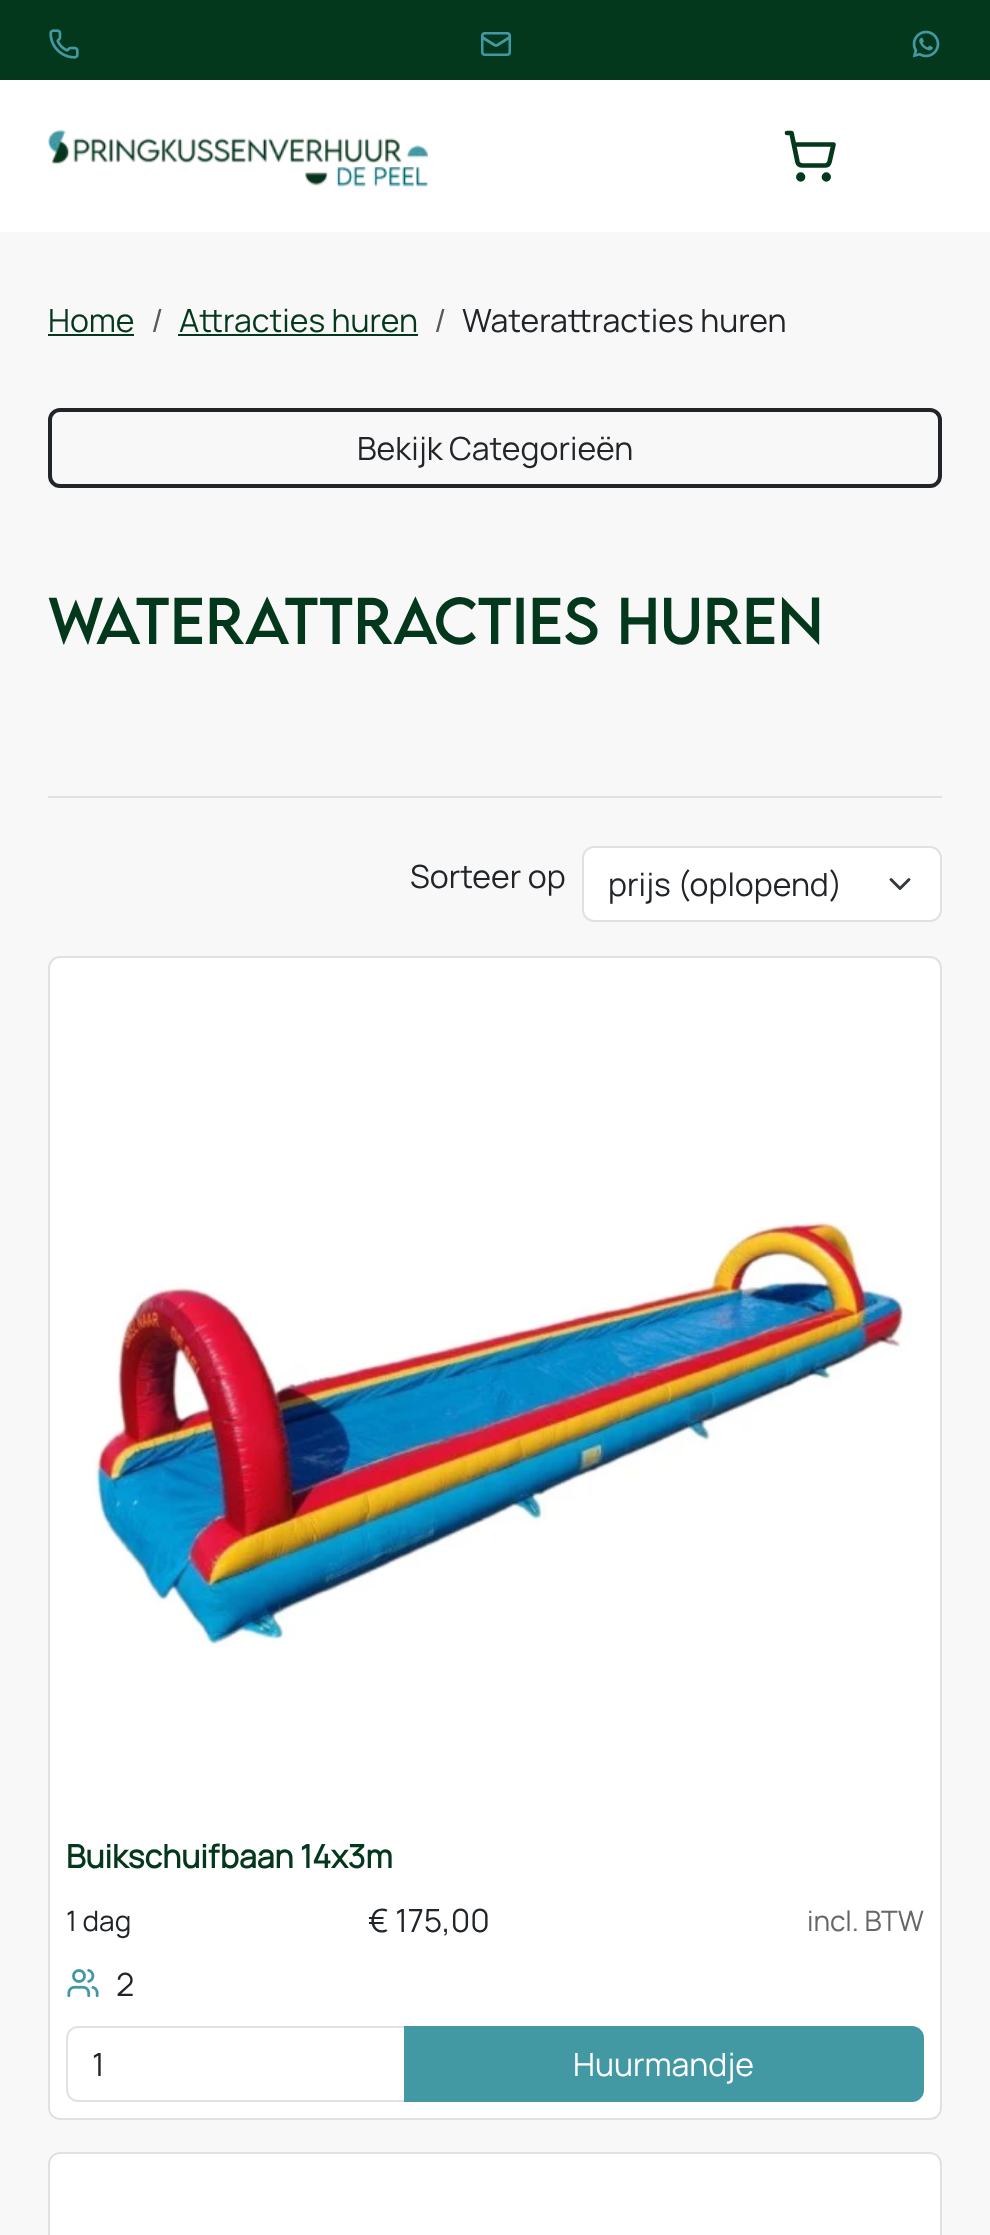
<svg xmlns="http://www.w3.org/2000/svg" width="990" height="2235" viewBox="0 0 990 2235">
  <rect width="100%" height="100%" fill="#f8f8f8"/>
  <path d="M0 80h990v152H0z" fill="#fff"/>
  <path d="M0 0h990v80H0z" fill="#04381c"/>
  <image x="49" y="29" width="30" height="30" href="img/1.png"/>
  <path d="M509.5 37.5L497.5 45C496.5 45.5 495.5 45.5 494.5 45L482.5 37.5" fill="none" stroke="#4399a3" stroke-width="2.7" stroke-linecap="round" stroke-linejoin="round"/>
  <rect x="482.25" y="33.25" width="27.5" height="21.5" rx="2.75" fill="none" stroke="#4399a3" stroke-width="2.5"/>
  <image x="912" y="30" width="28" height="28" href="img/2.png"/>
  <image x="48" y="130" width="380" height="58" href="img/3.png"/>
  <circle cx="800.7" cy="177" r="2.3" fill="none" stroke="#04381c" stroke-width="4.7"/>
  <circle cx="826.3" cy="177" r="2.3" fill="none" stroke="#04381c" stroke-width="4.7"/>
  <path d="M787 133H791.5L797.5 162C798 164 800 165.5 802.5 165.5H825C827.5 165.5 829 164 829.5 162L833.5 144.5H794" fill="none" stroke="#04381c" stroke-width="4.7" stroke-linecap="round" stroke-linejoin="round"/>
  <path d="M48 334h86v2H48z" fill="#04381c"/>
  <path d="M178 334h240v2H178z" fill="#04381c"/>
  <rect x="50" y="410" width="890" height="76" rx="10" fill="none" stroke="#212529" stroke-width="4"/>
  <path d="M48 796h894v2H48z" fill="#dee2e6"/>
  <rect x="584" y="848" width="356" height="72" rx="10" fill="#fff"/>
  <path d="M891 879.5L900 888.5L909 879.5" fill="none" stroke="#343a40" stroke-width="3" stroke-linecap="round" stroke-linejoin="round"/>
  <rect x="583" y="847" width="358" height="74" rx="11" fill="none" stroke="#dee2e6" stroke-width="2"/>
  <rect x="49" y="957" width="892" height="1162" rx="11" fill="#fff" stroke="#dee2e6" stroke-width="2"/>
  <image x="90" y="1221" width="822" height="426" href="img/4.png"/>
  <image x="67" y="1969" width="32" height="29" href="img/5.png"/>
  <path d="M78 2027H405V2101H78C72 2101 67 2096 67 2090V2038C67 2032 72 2027 78 2027Z" fill="none" stroke="#dee2e6" stroke-width="2"/>
  <path d="M405 2027H912C918 2027 923 2032 923 2038V2090C923 2096 918 2101 912 2101H405Z" fill="#4399a3" stroke="#4399a3" stroke-width="2"/>
  <rect x="49" y="2153" width="892" height="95" rx="11" fill="#fff" stroke="#dee2e6" stroke-width="2"/>
  <text x="48" y="332" font-family="Manrope" font-size="32" fill="#04381c">Home</text>
  <text x="151" y="332" font-family="Manrope" font-size="32" fill="#575a5d">/</text>
  <text x="179" y="332" font-family="Manrope" font-size="32" fill="#04381c">Attracties huren</text>
  <text x="434" y="332" font-family="Manrope" font-size="32" fill="#575a5d">/</text>
  <g font-family="Manrope" font-size="32" fill="#212529">
    <text x="462" y="332">Waterattracties huren</text>
    <text x="357" y="460">Bekijk Categorieën</text>
  </g>
  <text x="48" y="644" font-family="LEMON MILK" font-size="58.8" fill="#04381c">Waterattracties huren</text>
  <g font-family="Manrope" font-size="32" fill="#212529">
    <text x="410" y="888">Sorteer op</text>
    <text x="608" y="896">prijs (oplopend)</text>
  </g>
  <text x="66" y="1868" font-family="Manrope" font-size="32" font-weight="bold" fill="#04381c">Buikschuifbaan 14x3m</text>
  <text x="66" y="1931" font-family="Manrope" font-size="28" fill="#212529">1 dag</text>
  <text x="368" y="1932" font-family="Manrope" font-size="32" fill="#212529">€ 175,00</text>
  <text x="807" y="1931" font-family="Manrope" font-size="28" fill="#666">incl. BTW</text>
  <g font-family="Manrope" font-size="32" fill="#212529">
    <text x="116" y="1996">2</text>
    <text x="92" y="2076">1</text>
  </g>
  <text x="573" y="2076" font-family="Manrope" font-size="32" fill="#fff">Huurmandje</text>
</svg>
